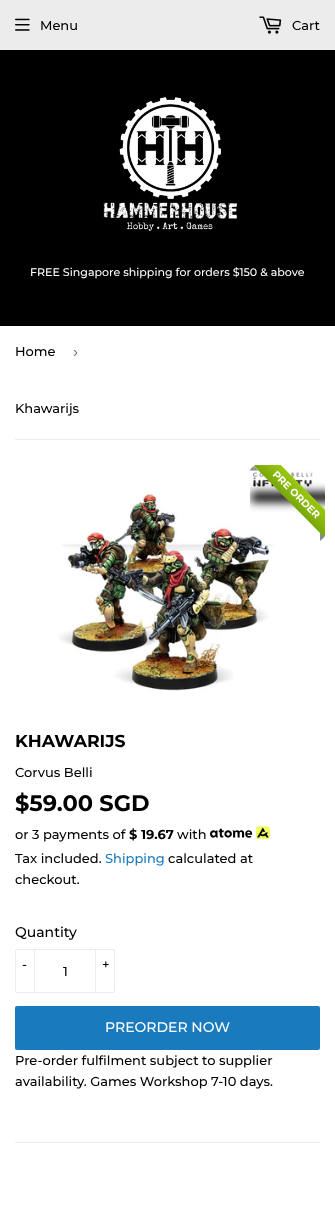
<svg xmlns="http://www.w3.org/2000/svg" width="335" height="1211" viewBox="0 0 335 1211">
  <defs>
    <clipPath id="clip1"><path d="M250 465h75v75H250z"/></clipPath>
    <clipPath id="clip2"><path d="M250 465h75v75H250z"/></clipPath>
    <linearGradient id="g1" gradientUnits="userSpaceOnUse" x1="303" y1="487" x2="289" y2="501"><stop offset="0" stop-color="#9bc90d"/><stop offset="1" stop-color="#79a70a"/></linearGradient>
  </defs>
  <rect width="100%" height="100%" fill="#fff"/>
  <path d="M0 0h335v50H0z" fill="#ececec"/>
  <image x="15" y="18" width="15" height="13" href="img/1.png"/>
  <image x="259" y="16" width="23" height="18" href="img/2.png"/>
  <path d="M0 50h335v276H0z" fill="#000"/>
  <image x="103" y="97" width="134" height="134" href="img/3.png"/>
  <path d="M15 439h305v1H15z" fill="#ececec"/>
  <image x="58" y="470" width="255" height="221" href="img/4.png"/>
  <g clip-path="url(#clip1)">
    <path d="M251 492h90v10H251z" fill="#000" filter="blur(5px)"/>
  </g>
  <g clip-path="url(#clip2)">
    <path d="M268 452L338 523L324 537L254 466Z" fill="url(#g1)"/>
  </g>
  <path d="M253.5 466L258 470.5H253.5Z" fill="#888"/>
  <path d="M249.5 470.5L253.5 466V470.5Z" fill="#888"/>
  <path d="M320 532.5L324.5 537H320ZM324.5 537L320 541V537Z" fill="#888"/>
  <image x="210" y="826" width="60" height="14" href="img/5.png"/>
  <rect x="15.5" y="949.5" width="99" height="43" rx="1.5" fill="none" stroke="#ececec"/>
  <path d="M34 949h1v44H34z" fill="#ececec"/>
  <path d="M95 949h1v44H95z" fill="#ececec"/>
  <rect x="15" y="1006" width="305" height="44" rx="2" fill="#197bbd"/>
  <path d="M15 1142h305v1H15z" fill="#ececec"/>
  <g font-family="Montserrat" font-size="13" font-weight="500" fill="#000">
    <text x="40" y="30">Menu</text>
    <text x="292" y="30">Cart</text>
  </g>
  <text x="30" y="276" font-family="Montserrat" font-size="11.05" font-weight="500" fill="#fff">FREE Singapore shipping for orders $150 &amp; above</text>
  <text x="15" y="356" font-family="Montserrat" font-size="13" font-weight="500" fill="#000">Home</text>
  <text x="73" y="357" font-family="Liberation Sans" font-size="15" fill="#767676">›</text>
  <text x="15" y="413" font-family="Montserrat" font-size="13" font-weight="500" fill="#000">Khawarijs</text>
  <text x="272" y="475" transform="rotate(45 272 475)" font-family="Montserrat" font-size="10" font-weight="bold" fill="#fff">PRE ORDER</text>
  <text x="15" y="747" font-family="Montserrat" font-size="17.25" font-weight="bold" fill="#000">KHAWARIJS</text>
  <text x="15" y="777" font-family="Montserrat" font-size="13" font-weight="500" fill="#000">Corvus Belli</text>
  <text x="15" y="811" font-family="Montserrat" font-size="22.5" font-weight="bold" fill="#000">$59.00 SGD</text>
  <text x="15" y="839" font-family="Montserrat" font-size="13" font-weight="500" fill="#000">or 3 payments of</text>
  <text x="129" y="839" font-family="Montserrat" font-size="13" font-weight="bold" fill="#000">$ 19.67</text>
  <g font-family="Montserrat" font-size="13" font-weight="500" fill="#000">
    <text x="177" y="839">with</text>
    <text x="15" y="863">Tax included.</text>
  </g>
  <text x="105" y="863" font-family="Montserrat" font-size="13" font-weight="500" fill="#197bbd">Shipping</text>
  <g font-family="Montserrat" font-size="13" font-weight="500" fill="#000">
    <text x="168" y="863">calculated at</text>
    <text x="15" y="884">checkout.</text>
  </g>
  <text x="15" y="937" font-family="Montserrat" font-size="14" font-weight="500" fill="#000">Quantity</text>
  <g font-family="Montserrat" font-size="13" font-weight="500" fill="#000">
    <text x="22" y="969">-</text>
    <text x="102" y="969">+</text>
    <text x="63" y="976">1</text>
  </g>
  <text x="105" y="1032" font-family="Montserrat" font-size="14" font-weight="500" fill="#fff">PREORDER NOW</text>
  <g font-family="Montserrat" font-size="13" font-weight="500" fill="#000">
    <text x="15" y="1065">Pre-order fulfilment subject to supplier</text>
    <text x="15" y="1086">availability. Games Workshop 7-10 days.</text>
  </g>
</svg>
